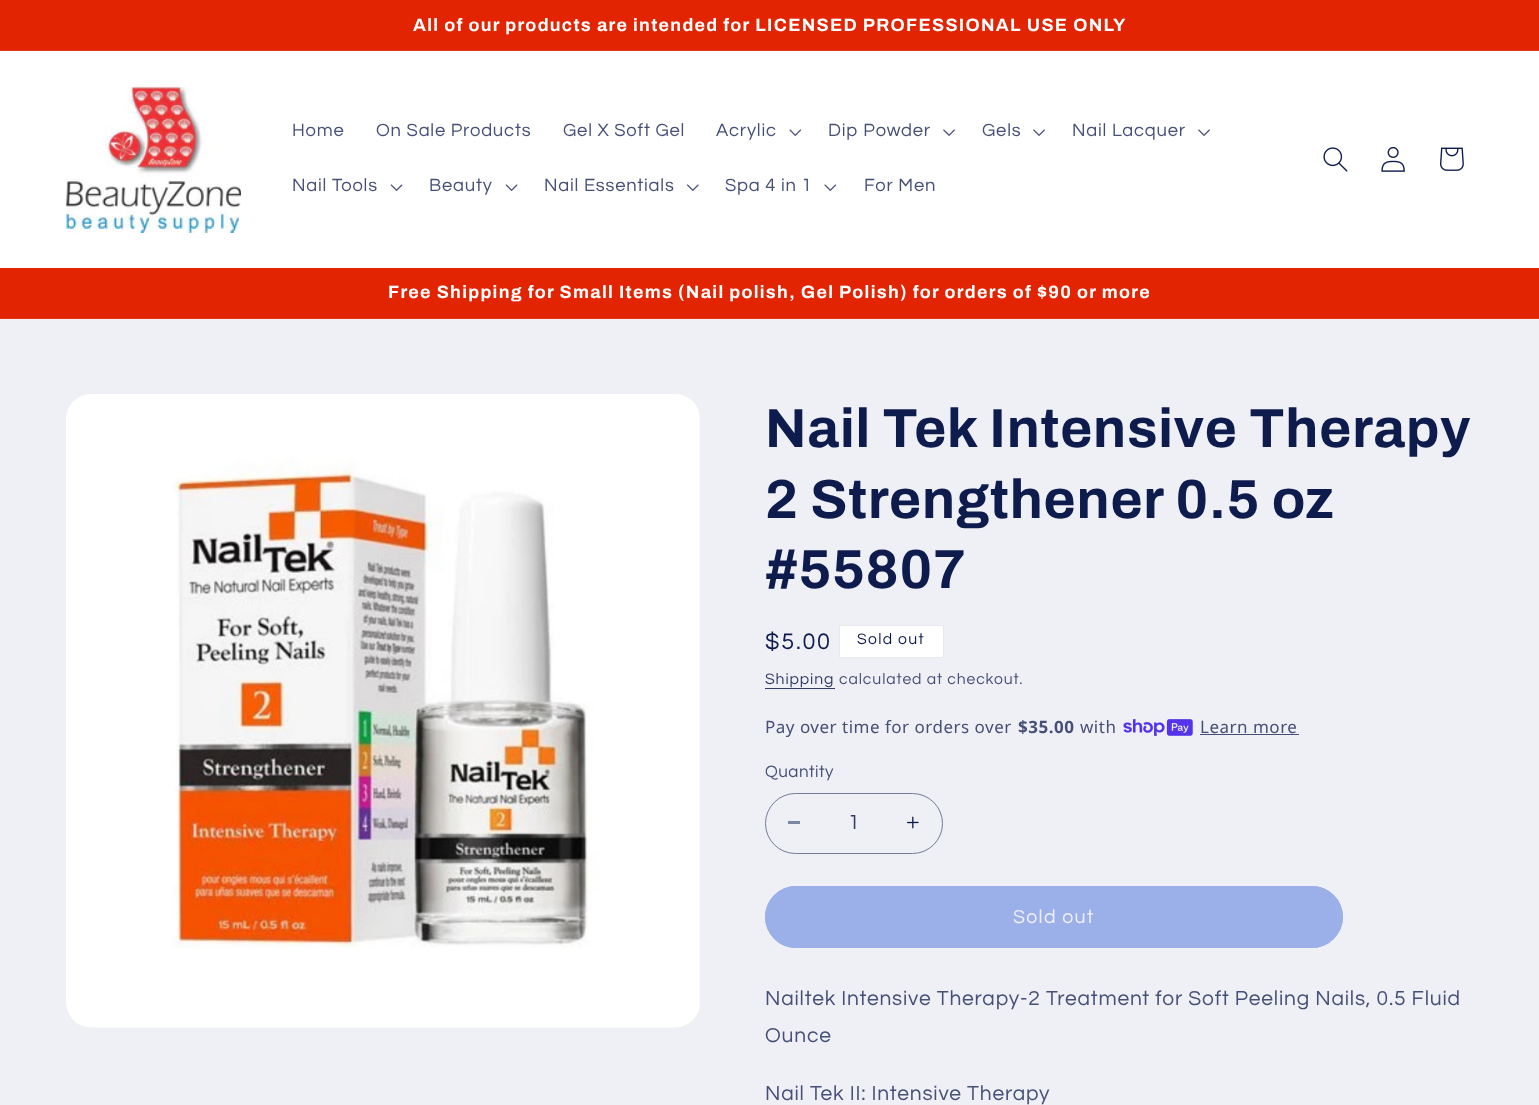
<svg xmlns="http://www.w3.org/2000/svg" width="1539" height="1105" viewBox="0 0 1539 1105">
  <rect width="100%" height="100%" fill="#eff0f5"/>
  <path d="M0 0h1539v50H0z" fill="#e32402"/>
  <path d="M0 50h1539v1H0z" fill="#e53616"/>
  <path d="M0 51h1539v217H0z" fill="#fff"/>
  <image x="66" y="86" width="175" height="147" href="img/1.png"/>
  <image x="789" y="129" width="12" height="7" href="img/2.png"/>
  <image x="943" y="129" width="12" height="7" href="img/3.png"/>
  <image x="1033" y="129" width="12" height="7" href="img/3.png"/>
  <image x="1198" y="129" width="12" height="7" href="img/3.png"/>
  <image x="390" y="184" width="13" height="7" href="img/4.png"/>
  <image x="505" y="184" width="13" height="7" href="img/4.png"/>
  <image x="687" y="184" width="12" height="7" href="img/5.png"/>
  <image x="824" y="184" width="13" height="7" href="img/6.png"/>
  <image x="1323" y="147" width="25" height="25" href="img/7.png"/>
  <image x="1381" y="146" width="24" height="26" href="img/8.png"/>
  <image x="1440" y="147" width="24" height="24" href="img/9.png"/>
  <path d="M0 268h1539v50H0z" fill="#e32402"/>
  <path d="M0 318h1539v1H0z" fill="#e53616"/>
  <image x="66" y="394" width="634" height="634" href="img/10.png"/>
  <path d="M839.5 625.5h104v32H839.5z" fill="#fff" stroke="#e7e8ed"/>
  <path d="M765 688h70v1H765z" fill="#303b66"/>
  <image x="1123" y="719" width="70" height="17" href="img/11.png"/>
  <path d="M1200 734h99v1H1200z" fill="#465077"/>
  <path d="M788 821h12v3H788z" fill="#7f86a1"/>
  <image x="906" y="816" width="13" height="13" href="img/12.png"/>
  <rect x="765.5" y="793.5" width="177" height="60" rx="30" fill="none" stroke="#737b99"/>
  <rect x="765" y="886" width="578" height="62" rx="31" fill="#9bb0e8"/>
  <rect x="765.5" y="886.5" width="577" height="61" rx="30.5" fill="none" stroke="#9bb0e8"/>
  <text x="413" y="31" font-family="Archivo" font-size="17.9" font-weight="bold" letter-spacing="1.3" fill="#fff">All of our products are intended for LICENSED PROFESSIONAL USE ONLY</text>
  <g font-family="Questrial" font-size="18.4" letter-spacing="0.8" fill="#465077">
    <text x="292" y="136">Home</text>
    <text x="376" y="136">On Sale Products</text>
    <text x="563" y="136">Gel X Soft Gel</text>
    <text x="716" y="136">Acrylic</text>
    <text x="828" y="136">Dip Powder</text>
    <text x="982" y="136">Gels</text>
    <text x="1072" y="136">Nail Lacquer</text>
    <text x="292" y="191">Nail Tools</text>
    <text x="429" y="191">Beauty</text>
    <text x="544" y="191">Nail Essentials</text>
    <text x="725" y="191">Spa 4 in 1</text>
    <text x="864" y="191">For Men</text>
  </g>
  <text x="388" y="298" font-family="Archivo" font-size="17.9" font-weight="bold" letter-spacing="1.3" fill="#fff">Free Shipping for Small Items (Nail polish, Gel Polish) for orders of $90 or more</text>
  <g font-family="Archivo" font-size="55" font-weight="bold" letter-spacing="0.8" fill="#0e1b4d">
    <text x="765" y="447">Nail Tek Intensive Therapy</text>
    <text x="765" y="518">2 Strengthener 0.5 oz</text>
    <text x="765" y="588">#55807</text>
  </g>
  <text x="765" y="649" font-family="Questrial" font-size="23.5" letter-spacing="1.75" fill="#0e1b4d">$5.00</text>
  <text x="857" y="644" font-family="Questrial" font-size="15.75" letter-spacing="1.3" fill="#0e1b4d">Sold out</text>
  <text x="765" y="684" font-family="Questrial" font-size="15.75" letter-spacing="0.9" fill="#303b66">Shipping</text>
  <text x="839" y="684" font-family="Questrial" font-size="15.75" letter-spacing="0.9" fill="#465077">calculated at checkout.</text>
  <text x="765" y="733" font-family="Noto Sans" font-size="17" letter-spacing="0.5" fill="#465077">Pay over time for orders over</text>
  <text x="1018" y="733" font-family="Noto Sans" font-size="17" font-weight="bold" letter-spacing="0.5" fill="#465077">$35.00</text>
  <g font-family="Noto Sans" font-size="17" letter-spacing="0.5" fill="#465077">
    <text x="1080" y="733">with</text>
    <text x="1200" y="733">Learn more</text>
  </g>
  <text x="765" y="777" font-family="Questrial" font-size="17" letter-spacing="0.5" fill="#465077">Quantity</text>
  <text x="848" y="829" font-family="Questrial" font-size="21" fill="#303b66">1</text>
  <text x="1013" y="923" font-family="Questrial" font-size="19.5" letter-spacing="1.3" fill="#eff0f5">Sold out</text>
  <g font-family="Questrial" font-size="21" letter-spacing="0.8" fill="#465077">
    <text x="765" y="1005">Nailtek Intensive Therapy-2 Treatment for Soft Peeling Nails, 0.5 Fluid</text>
    <text x="765" y="1042">Ounce</text>
    <text x="765" y="1100">Nail Tek II: Intensive Therapy</text>
  </g>
</svg>
